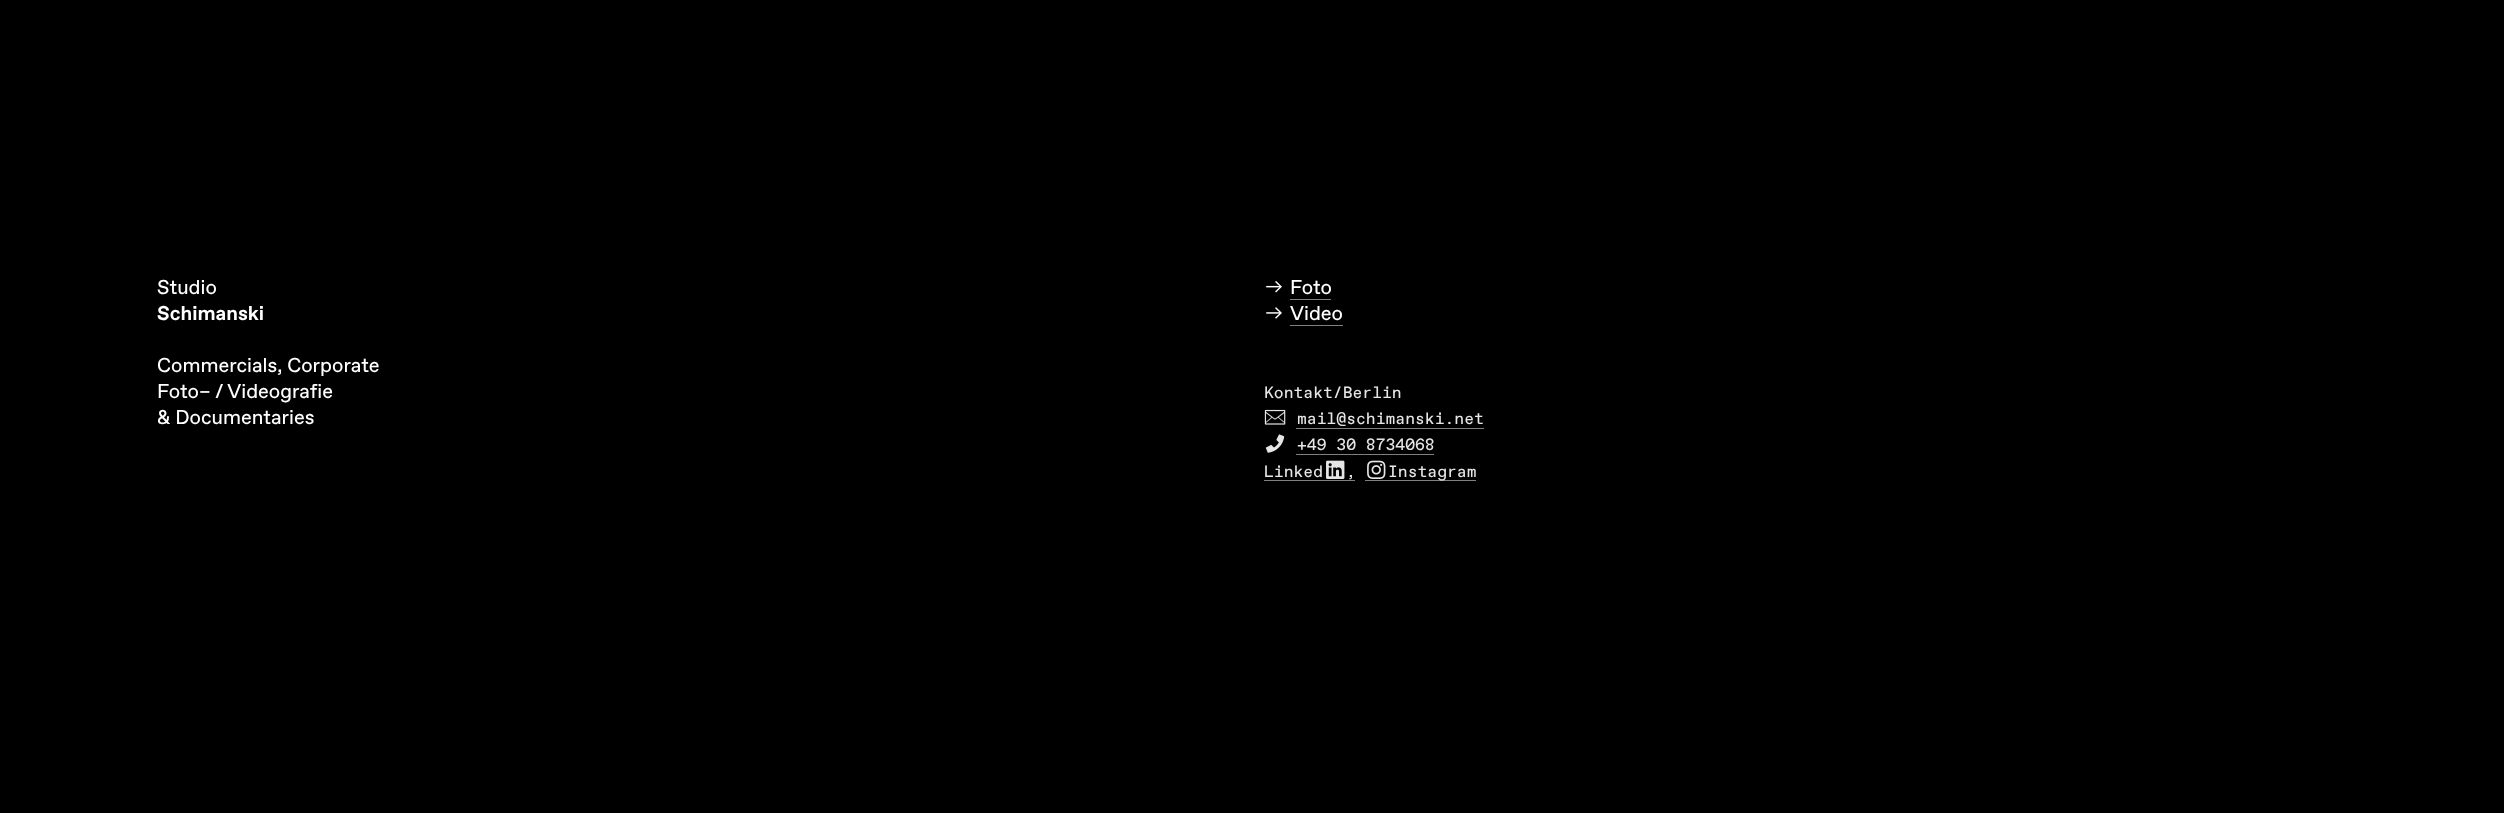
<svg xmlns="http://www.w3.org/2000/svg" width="2504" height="813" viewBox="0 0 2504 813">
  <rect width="100%" height="100%" fill="#000"/>
  <image x="1266" y="281" width="16" height="12" href="img/1.png"/>
  <path d="M1290 299h41v1H1290z" fill="#808080"/>
  <image x="1266" y="307" width="16" height="12" href="img/2.png"/>
  <path d="M1290 325h53v1H1290z" fill="#808080"/>
  <image x="1264" y="409" width="22" height="16" href="img/3.png"/>
  <path d="M1296 428h188v1H1296z" fill="#808080"/>
  <image x="1265" y="434" width="20" height="19" href="img/4.png"/>
  <path d="M1296 454h138v1H1296z" fill="#808080"/>
  <image x="1326" y="460" width="19" height="19" href="img/5.png"/>
  <path d="M1264 480h91v1H1264z" fill="#808080"/>
  <image x="1367" y="460" width="19" height="19" href="img/6.png"/>
  <path d="M1365 480h111v1H1365z" fill="#808080"/>
  <text x="157" y="294" font-family="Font" font-size="20" fill="#fff">Studio</text>
  <text x="157" y="320" font-family="Font" font-size="20" font-weight="bold" fill="#fff">Schimanski</text>
  <g font-family="Font" font-size="20" fill="#fff">
    <text x="157" y="372">Commercials, Corporate</text>
    <text x="157" y="398">Foto– / Videografie</text>
    <text x="157" y="424">&amp; Documentaries</text>
    <text x="1290" y="294">Foto</text>
    <text x="1290" y="320">Video</text>
  </g>
  <g font-family="'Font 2'" font-size="16.4" fill="#e6e6e6">
    <text x="1264" y="398">Kontakt/Berlin</text>
    <text x="1297" y="424">mail@schimanski.net</text>
    <text x="1297" y="450">+49 30 8734068</text>
    <text x="1264" y="477">Linked</text>
    <text x="1346" y="477">,</text>
    <text x="1388" y="477">Instagram</text>
  </g>
</svg>
